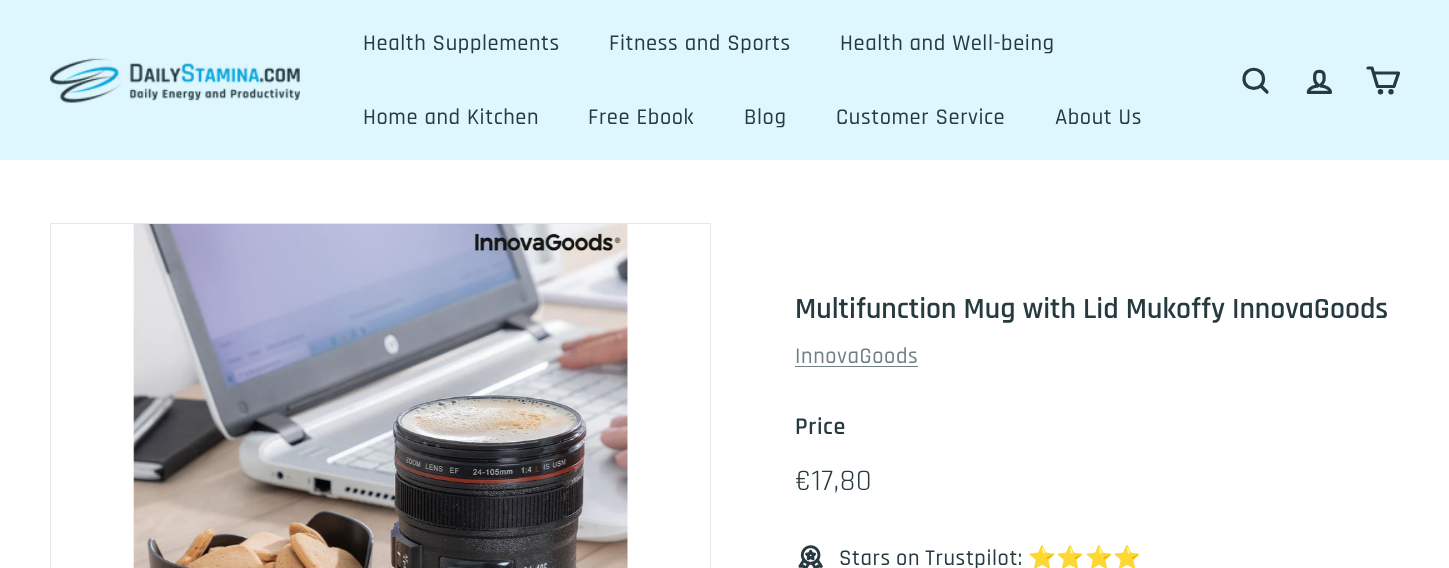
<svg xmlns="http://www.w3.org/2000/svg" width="1449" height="568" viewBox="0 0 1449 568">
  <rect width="100%" height="100%" fill="#fff"/>
  <path d="M0 0h1449v160H0z" fill="#def6fd"/>
  <image x="50" y="58" width="250" height="45" href="img/1.png"/>
  <path d="M1263.5 79C1263.5 91.5 1244 91.5 1244 79C1244 66 1263.5 66 1263.5 79ZM1267 92L1261 86" fill="none" stroke="#263a40" stroke-width="3.2" stroke-linecap="round" stroke-linejoin="round"/>
  <image x="1306" y="69" width="26" height="25" href="img/2.png"/>
  <path d="M1373.5 73H1398.5L1394 86.5H1377.5L1372 68H1368" fill="none" stroke="#263a40" stroke-width="3.2" stroke-linecap="round" stroke-linejoin="round"/>
  <circle cx="1380.5" cy="91.7" r="1.1" fill="#263a40" stroke="#263a40" stroke-width="3.2"/>
  <circle cx="1391" cy="91.7" r="1.1" fill="#263a40" stroke="#263a40" stroke-width="3.2"/>
  <path d="M50.5 223.5h660v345H50.5z" fill="none" stroke="#e8e8e1"/>
  <image x="133" y="224" width="495" height="344" href="img/3.png"/>
  <path d="M795 366h123v1H795z" fill="#727f83"/>
  <image x="798" y="545" width="25" height="23" href="img/4.png"/>
  <g font-family="Rajdhani" font-size="22.5" font-weight="500" letter-spacing="0.6" fill="#263a40">
    <text x="363" y="50">Health Supplements</text>
    <text x="609" y="50">Fitness and Sports</text>
    <text x="840" y="50">Health and Well-being</text>
    <text x="363" y="124">Home and Kitchen</text>
    <text x="588" y="124">Free Ebook</text>
    <text x="744" y="124">Blog</text>
    <text x="836" y="124">Customer Service</text>
    <text x="1055" y="124">About Us</text>
  </g>
  <text x="795" y="318" font-family="Rajdhani" font-size="29.75" font-weight="600" fill="#263a40">Multifunction Mug with Lid Mukoffy InnovaGoods</text>
  <text x="795" y="363" font-family="Rajdhani" font-size="22.5" font-weight="500" letter-spacing="0.6" fill="#727f83">InnovaGoods</text>
  <text x="795" y="434" font-family="Rajdhani" font-size="24" font-weight="600" letter-spacing="0.6" fill="#263a40">Price</text>
  <text x="795" y="490" font-family="Rajdhani" font-size="30" letter-spacing="0.6" fill="#263a40">€17,80</text>
  <text x="839" y="565" word-spacing="-1" font-family="Rajdhani" font-size="22.5" font-weight="500" letter-spacing="0.6" fill="#263a40">Stars on Trustpilot:</text>
  <text x="1028" y="565" font-family="Noto Color Emoji" font-size="22.5" letter-spacing="0.6" fill="#263a40">⭐️⭐️⭐️⭐️</text>
</svg>
